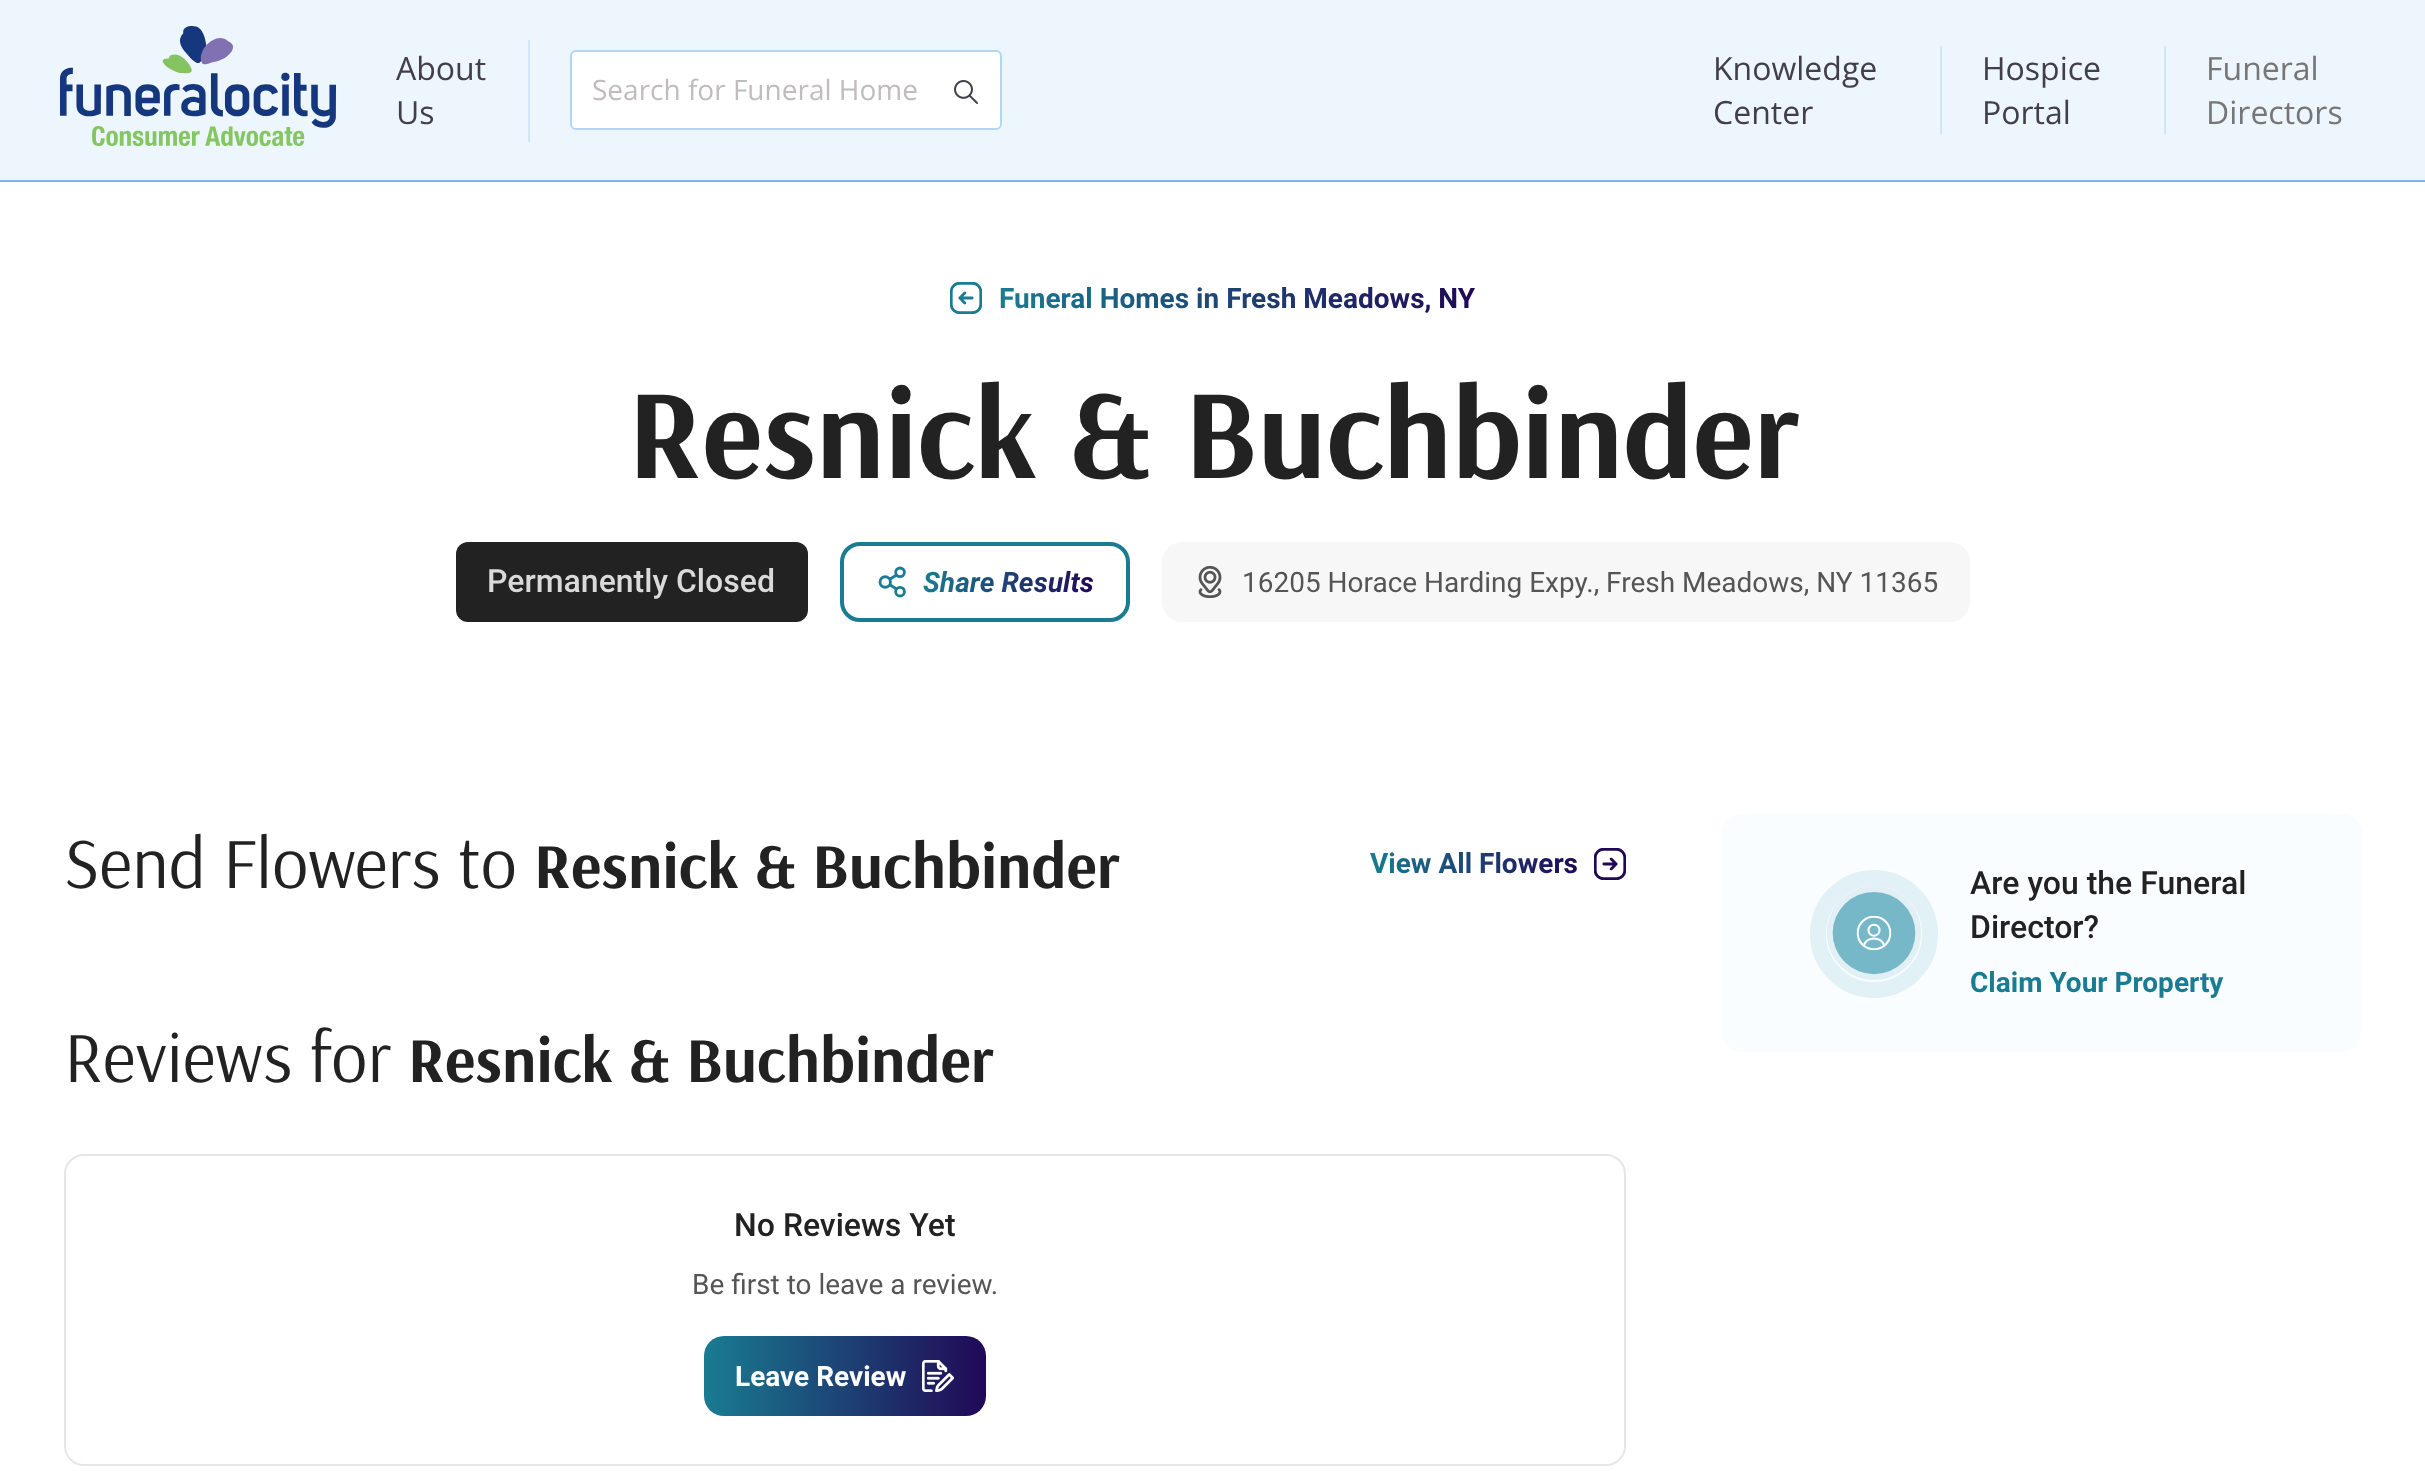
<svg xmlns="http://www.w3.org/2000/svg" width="2425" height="1471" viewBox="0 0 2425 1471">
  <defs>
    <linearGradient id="g1" gradientUnits="userSpaceOnUse" x1="999" y1="298" x2="1475" y2="298"><stop offset="0" stop-color="#197c92"/><stop offset="1" stop-color="#210856"/></linearGradient>
    <linearGradient id="g2" gradientUnits="userSpaceOnUse" x1="923" y1="582" x2="1094" y2="582"><stop offset="0" stop-color="#197c92"/><stop offset="1" stop-color="#210856"/></linearGradient>
    <linearGradient id="g3" gradientUnits="userSpaceOnUse" x1="1370" y1="863" x2="1578" y2="863"><stop offset="0" stop-color="#197c92"/><stop offset="1" stop-color="#210856"/></linearGradient>
    <linearGradient id="g4" gradientUnits="userSpaceOnUse" x1="704" y1="1376" x2="986" y2="1376"><stop offset="0" stop-color="#197c92"/><stop offset="1" stop-color="#210856"/></linearGradient>
  </defs>
  <rect width="100%" height="100%" fill="#fff"/>
  <path d="M0 0h2425v180H0z" fill="#edf5fd"/>
  <path d="M0 180h2425v2H0z" fill="#7bb7ee"/>
  <image x="60" y="26" width="276" height="120" href="img/1.png"/>
  <path d="M528 40h2v102H528z" fill="#d2e6f9"/>
  <rect x="571" y="51" width="430" height="78" rx="5" fill="#fff" stroke="#b3d6f5" stroke-width="2"/>
  <image x="954" y="80" width="24" height="24" href="img/2.png"/>
  <path d="M1940 46h2v88H1940z" fill="#d2e6f9"/>
  <path d="M2164 46h2v88H2164z" fill="#d2e6f9"/>
  <image x="950" y="282" width="32" height="32" href="img/3.png"/>
  <rect x="456" y="542" width="352" height="80" rx="12" fill="#222"/>
  <rect x="842" y="544" width="286" height="76" rx="18" fill="none" stroke="#197c92" stroke-width="4"/>
  <image x="878" y="566" width="28" height="32" href="img/4.png"/>
  <rect x="1162" y="542" width="808" height="80" rx="20" fill="#f7f7f7"/>
  <image x="1198" y="566" width="24" height="32" href="img/5.png"/>
  <image x="1594" y="848" width="32" height="32" href="img/6.png"/>
  <rect x="65" y="1155" width="1560" height="310" rx="19" fill="none" stroke="#e6e6e6" stroke-width="2"/>
  <rect x="704" y="1336" width="282" height="80" rx="20" fill="url(#g4)"/>
  <image x="922" y="1360" width="32" height="32" href="img/7.png"/>
  <rect x="1722" y="814" width="640" height="238" rx="20" fill="#fafdff"/>
  <circle cx="1874" cy="934" r="56" fill="none" stroke="#e2f1f5" stroke-width="16"/>
  <image x="1827" y="886" width="94" height="94" href="img/8.png"/>
  <g font-family="Open Sans" font-size="32" fill="#423f49">
    <text x="396" y="80">About</text>
    <text x="396" y="124">Us</text>
  </g>
  <text x="592" y="100" font-family="Open Sans" font-size="28" fill="#c0bbbd">Search for Funeral Home</text>
  <g font-family="Open Sans" font-size="32" fill="#423f49">
    <text x="1713" y="80">Knowledge</text>
    <text x="1713" y="124">Center</text>
    <text x="1982" y="80">Hospice</text>
    <text x="1982" y="124">Portal</text>
  </g>
  <g font-family="Open Sans" font-size="32" fill="#767676">
    <text x="2206" y="80">Funeral</text>
    <text x="2206" y="124">Directors</text>
  </g>
  <text x="999" y="308" font-family="Roboto" font-size="28" font-weight="bold" fill="url(#g1)">Funeral Homes in Fresh Meadows, NY</text>
  <text x="628" y="478" font-family="Arsenal" font-size="128" font-weight="bold" fill="#222">Resnick &amp; Buchbinder</text>
  <text x="487" y="592" font-family="Roboto" font-size="32" font-weight="500" fill="#dadada">Permanently Closed</text>
  <text x="923" y="592" font-family="Roboto" font-size="28" font-weight="bold" font-style="italic" fill="url(#g2)">Share Results</text>
  <text x="1242" y="592" font-family="Roboto" font-size="28" fill="#555">16205 Horace Harding Expy., Fresh Meadows, NY 11365</text>
  <text x="64" y="888" font-family="Arsenal" font-size="72" fill="#222">Send Flowers to</text>
  <text x="534" y="888" font-family="Arsenal" font-size="64" font-weight="bold" fill="#222">Resnick &amp; Buchbinder</text>
  <text x="1370" y="873" font-family="Roboto" font-size="28" font-weight="bold" fill="url(#g3)">View All Flowers</text>
  <text x="64" y="1082" font-family="Arsenal" font-size="72" fill="#222">Reviews for</text>
  <text x="408" y="1082" font-family="Arsenal" font-size="64" font-weight="bold" fill="#222">Resnick &amp; Buchbinder</text>
  <text x="734" y="1236" font-family="Roboto" font-size="32" font-weight="500" fill="#222">No Reviews Yet</text>
  <text x="692" y="1294" font-family="Roboto" font-size="28" fill="#555">Be first to leave a review.</text>
  <text x="735" y="1386" font-family="Roboto" font-size="28" font-weight="bold" fill="#fff">Leave Review</text>
  <g font-family="Roboto" font-size="32" font-weight="500" fill="#222">
    <text x="1970" y="894">Are you the Funeral</text>
    <text x="1970" y="938">Director?</text>
  </g>
  <text x="1970" y="992" font-family="Roboto" font-size="28" font-weight="bold" fill="#197c92">Claim Your Property</text>
</svg>
